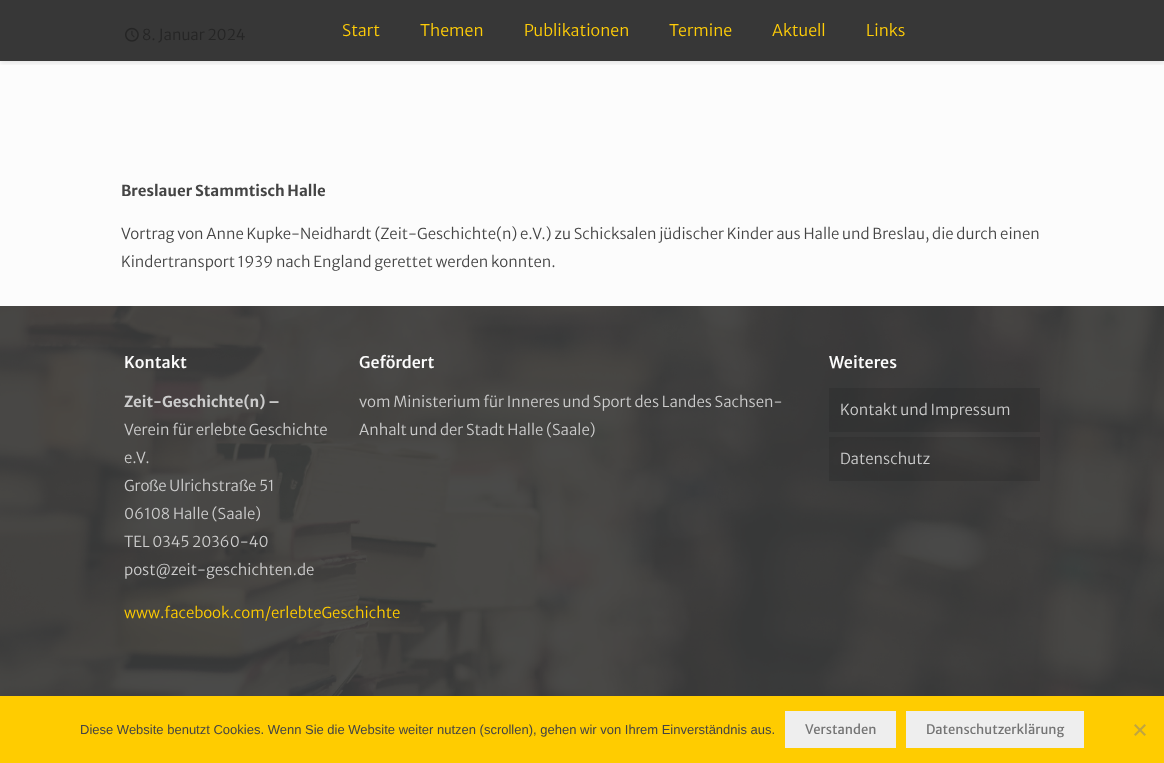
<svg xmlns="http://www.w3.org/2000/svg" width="1164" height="763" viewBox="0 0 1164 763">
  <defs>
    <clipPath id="clip1"><path d="M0 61h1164v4H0z"/></clipPath>
  </defs>
  <rect width="100%" height="100%" fill="#fcfcfc"/>
  <path d="M0 0h1164v61H0z" fill="#373737"/>
  <image x="125" y="27" width="14" height="15" href="img/1.png"/>
  <g clip-path="url(#clip1)">
    <path d="M0 2h1164v61H0z" fill="#0808081a" filter="blur(2.5px)"/>
  </g>
  <image x="0" y="306" width="1164" height="390" href="img/2.png"/>
  <path d="M829 388h211v44H829z" fill="#0000001a"/>
  <path d="M829 437h211v44H829z" fill="#0000001a"/>
  <path d="M0 696h1164v67H0z" fill="#fc0"/>
  <path d="M785 711h111v37H785z" fill="#eee"/>
  <path d="M906 711h178v37H906z" fill="#eee"/>
  <path d="M1144.5 724L1146 725.5L1135.5 736L1134 734.5Z" fill="#c0a640"/>
  <path d="M1134 725.5L1135.5 724L1146 734.5L1144.5 736Z" fill="#c0a640"/>
  <g font-family="Merriweather Sans" font-size="16" font-weight="300" fill="#ffcd08">
    <text x="342" y="36">Start</text>
    <text x="420" y="36">Themen</text>
    <text x="524" y="36">Publikationen</text>
    <text x="669" y="36">Termine</text>
    <text x="772" y="36">Aktuell</text>
    <text x="866" y="36">Links</text>
  </g>
  <text x="142" y="40" font-family="Merriweather Sans" font-size="15" font-weight="300" fill="#252525">8. Januar 2024</text>
  <text x="121" y="196" font-family="Merriweather Sans" font-size="15" font-weight="bold" fill="#444">Breslauer Stammtisch Halle</text>
  <g font-family="Merriweather Sans" font-size="15" font-weight="300" fill="#444">
    <text x="121" y="239">Vortrag von Anne Kupke-Neidhardt (Zeit-Geschichte(n) e.V.) zu Schicksalen jüdischer Kinder aus Halle und Breslau, die durch einen</text>
    <text x="121" y="267">Kindertransport 1939 nach England gerettet werden konnten.</text>
  </g>
  <text x="124" y="368" font-family="Merriweather Sans" font-size="16" font-weight="500" fill="#fcfcfc">Kontakt</text>
  <text x="124" y="407" font-family="Merriweather Sans" font-size="15" font-weight="bold" fill="#ccc">Zeit-Geschichte(n) –</text>
  <g font-family="Merriweather Sans" font-size="15" font-weight="300" fill="#ccc">
    <text x="124" y="435">Verein für erlebte Geschichte</text>
    <text x="124" y="463">e.V.</text>
    <text x="124" y="491">Große Ulrichstraße 51</text>
    <text x="124" y="519">06108 Halle (Saale)</text>
    <text x="124" y="547">TEL 0345 20360-40</text>
    <text x="124" y="575">post@zeit-geschichten.de</text>
  </g>
  <text x="124" y="618" font-family="Merriweather Sans" font-size="15" font-weight="300" fill="#fc0">www.facebook.com/erlebteGeschichte</text>
  <text x="359" y="368" font-family="Merriweather Sans" font-size="16" font-weight="500" fill="#fcfcfc">Gefördert</text>
  <g font-family="Merriweather Sans" font-size="15" font-weight="300" fill="#ccc">
    <text x="359" y="407">vom Ministerium für Inneres und Sport des Landes Sachsen-</text>
    <text x="359" y="435">Anhalt und der Stadt Halle (Saale)</text>
  </g>
  <text x="829" y="368" font-family="Merriweather Sans" font-size="16" font-weight="500" fill="#fcfcfc">Weiteres</text>
  <g font-family="Merriweather Sans" font-size="15" font-weight="300" fill="#ccc">
    <text x="840" y="415">Kontakt und Impressum</text>
    <text x="840" y="464">Datenschutz</text>
  </g>
  <text x="80" y="734" font-family="Liberation Sans" font-size="13" fill="#444">Diese Website benutzt Cookies. Wenn Sie die Website weiter nutzen (scrollen), gehen wir von Ihrem Einverständnis aus.</text>
  <g font-family="Merriweather Sans" font-size="13" fill="#747474">
    <text x="805" y="734">Verstanden</text>
    <text x="926" y="734">Datenschutzerklärung</text>
  </g>
</svg>
